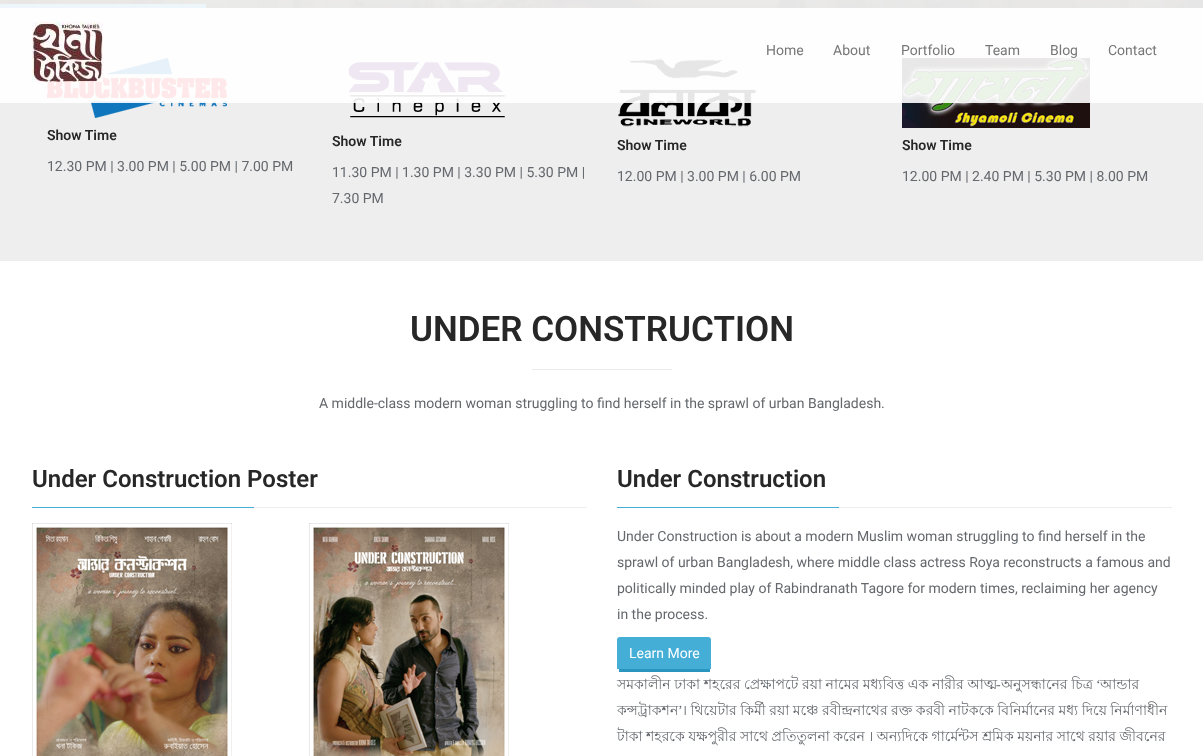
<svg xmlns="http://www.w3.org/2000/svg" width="1203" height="756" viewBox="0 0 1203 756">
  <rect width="100%" height="100%" fill="#fff"/>
  <image x="0" y="0" width="1203" height="8" href="img/1.png"/>
  <path d="M206 4h963v4H206z" fill="#0000001a"/>
  <path d="M0 4h206v4H0z" fill="#45aed6"/>
  <path d="M0 8h1203v253H0z" fill="#eee"/>
  <image x="47" y="58" width="180" height="60" href="img/3.png"/>
  <image x="348" y="62" width="157" height="56" href="img/4.png"/>
  <image x="618" y="58" width="139" height="69" href="img/5.png"/>
  <image x="902" y="58" width="188" height="70" href="img/6.png"/>
  <path d="M0 0h1203v103H0z" fill="#ffffffe6"/>
  <image x="32" y="22" width="71" height="60" href="img/2.png"/>
  <path d="M532 369h140v1H532z" fill="#ebebeb"/>
  <path d="M254 507h333v1H254z" fill="#eee"/>
  <path d="M32 507h222v1H32z" fill="#45aed6"/>
  <image x="32" y="523" width="200" height="233" href="img/7.png"/>
  <image x="309" y="523" width="200" height="233" href="img/8.png"/>
  <path d="M839 507h333v1H839z" fill="#eee"/>
  <path d="M617 507h222v1H617z" fill="#45aed6"/>
  <path d="M620 637H708C710 637 711 638 711 640V669H617V640C617 638 618 637 620 637Z" fill="#45aed6"/>
  <path d="M619 669h91v3H619z" fill="#2a95be"/>
  <g font-family="Roboto" font-size="14" fill="#777">
    <text x="766" y="55">Home</text>
    <text x="833" y="55">About</text>
    <text x="901" y="55">Portfolio</text>
    <text x="985" y="55">Team</text>
    <text x="1050" y="55">Blog</text>
    <text x="1108" y="55">Contact</text>
  </g>
  <text x="47" y="140" font-family="Roboto" font-size="14" font-weight="600" fill="#272727">Show Time</text>
  <text x="47" y="171" font-family="Roboto" font-size="14" fill="#64686d">12.30 PM | 3.00 PM | 5.00 PM | 7.00 PM</text>
  <text x="332" y="146" font-family="Roboto" font-size="14" font-weight="600" fill="#272727">Show Time</text>
  <g font-family="Roboto" font-size="14" fill="#64686d">
    <text x="332" y="177">11.30 PM | 1.30 PM | 3.30 PM | 5.30 PM |</text>
    <text x="332" y="203">7.30 PM</text>
  </g>
  <text x="617" y="150" font-family="Roboto" font-size="14" font-weight="600" fill="#272727">Show Time</text>
  <text x="617" y="181" font-family="Roboto" font-size="14" fill="#64686d">12.00 PM | 3.00 PM | 6.00 PM</text>
  <text x="902" y="150" font-family="Roboto" font-size="14" font-weight="600" fill="#272727">Show Time</text>
  <text x="902" y="181" font-family="Roboto" font-size="14" fill="#64686d">12.00 PM | 2.40 PM | 5.30 PM | 8.00 PM</text>
  <text x="410" y="341" font-family="Roboto" font-size="35" font-weight="600" fill="#272727">UNDER CONSTRUCTION</text>
  <text x="319" y="408" font-family="Roboto" font-size="14" fill="#64686d">A middle-class modern woman struggling to find herself in the sprawl of urban Bangladesh.</text>
  <g font-family="Roboto" font-size="24" font-weight="600" fill="#272727">
    <text x="32" y="487">Under Construction Poster</text>
    <text x="617" y="487">Under Construction</text>
  </g>
  <g font-family="Roboto" font-size="14" fill="#64686d">
    <text x="617" y="541">Under Construction is about a modern Muslim woman struggling to find herself in the</text>
    <text x="617" y="567">sprawl of urban Bangladesh, where middle class actress Roya reconstructs a famous and</text>
    <text x="617" y="593">politically minded play of Rabindranath Tagore for modern times, reclaiming her agency</text>
    <text x="617" y="619">in the process.</text>
  </g>
  <text x="629" y="658" font-family="Roboto" font-size="14" fill="#fff">Learn More</text>
  <text x="617" y="689" word-spacing="-0.25" font-family="Lohit Bengali" font-size="14" fill="#64686d">সমকালীন ঢাকা শহরের প্রেক্ষাপটে রয়া নামের মধ্যবিত্ত এক নারীর আত্ম</text>
  <text x="1096" y="689" font-family="Liberation Serif" font-size="14" fill="#64686d">‘</text>
  <text x="1100" y="689" font-family="Lohit Bengali" font-size="14" fill="#64686d">আন্ডার</text>
  <text x="996" y="689" font-family="Liberation Serif" font-size="14" fill="#64686d">-</text>
  <g font-family="Lohit Bengali" font-size="14" fill="#64686d">
    <text x="1001" y="689" word-spacing="-0.25">অনুসন্ধানের চিত্র</text>
    <text x="617" y="715">কন্সট্রাকশন</text>
  </g>
  <text x="678" y="715" font-family="Liberation Serif" font-size="14" fill="#64686d">’</text>
  <g font-family="Lohit Bengali" font-size="14" fill="#64686d">
    <text x="682" y="715" word-spacing="-0.4">। থিয়েটার কির্মী রয়া মঞ্চে রবীন্দ্রনাথের রক্ত করবী নাটককে বিনির্মানের মধ্য দিয়ে নির্মাণাধীন</text>
    <text x="617" y="741" word-spacing="-0.4">টাকা শহরকে যক্ষপুরীর সাথে প্রতিতুলনা করেন । অন্যদিকে গার্মেন্টস শ্রমিক ময়নার সাথে রয়ার জীবনের</text>
  </g>
</svg>
